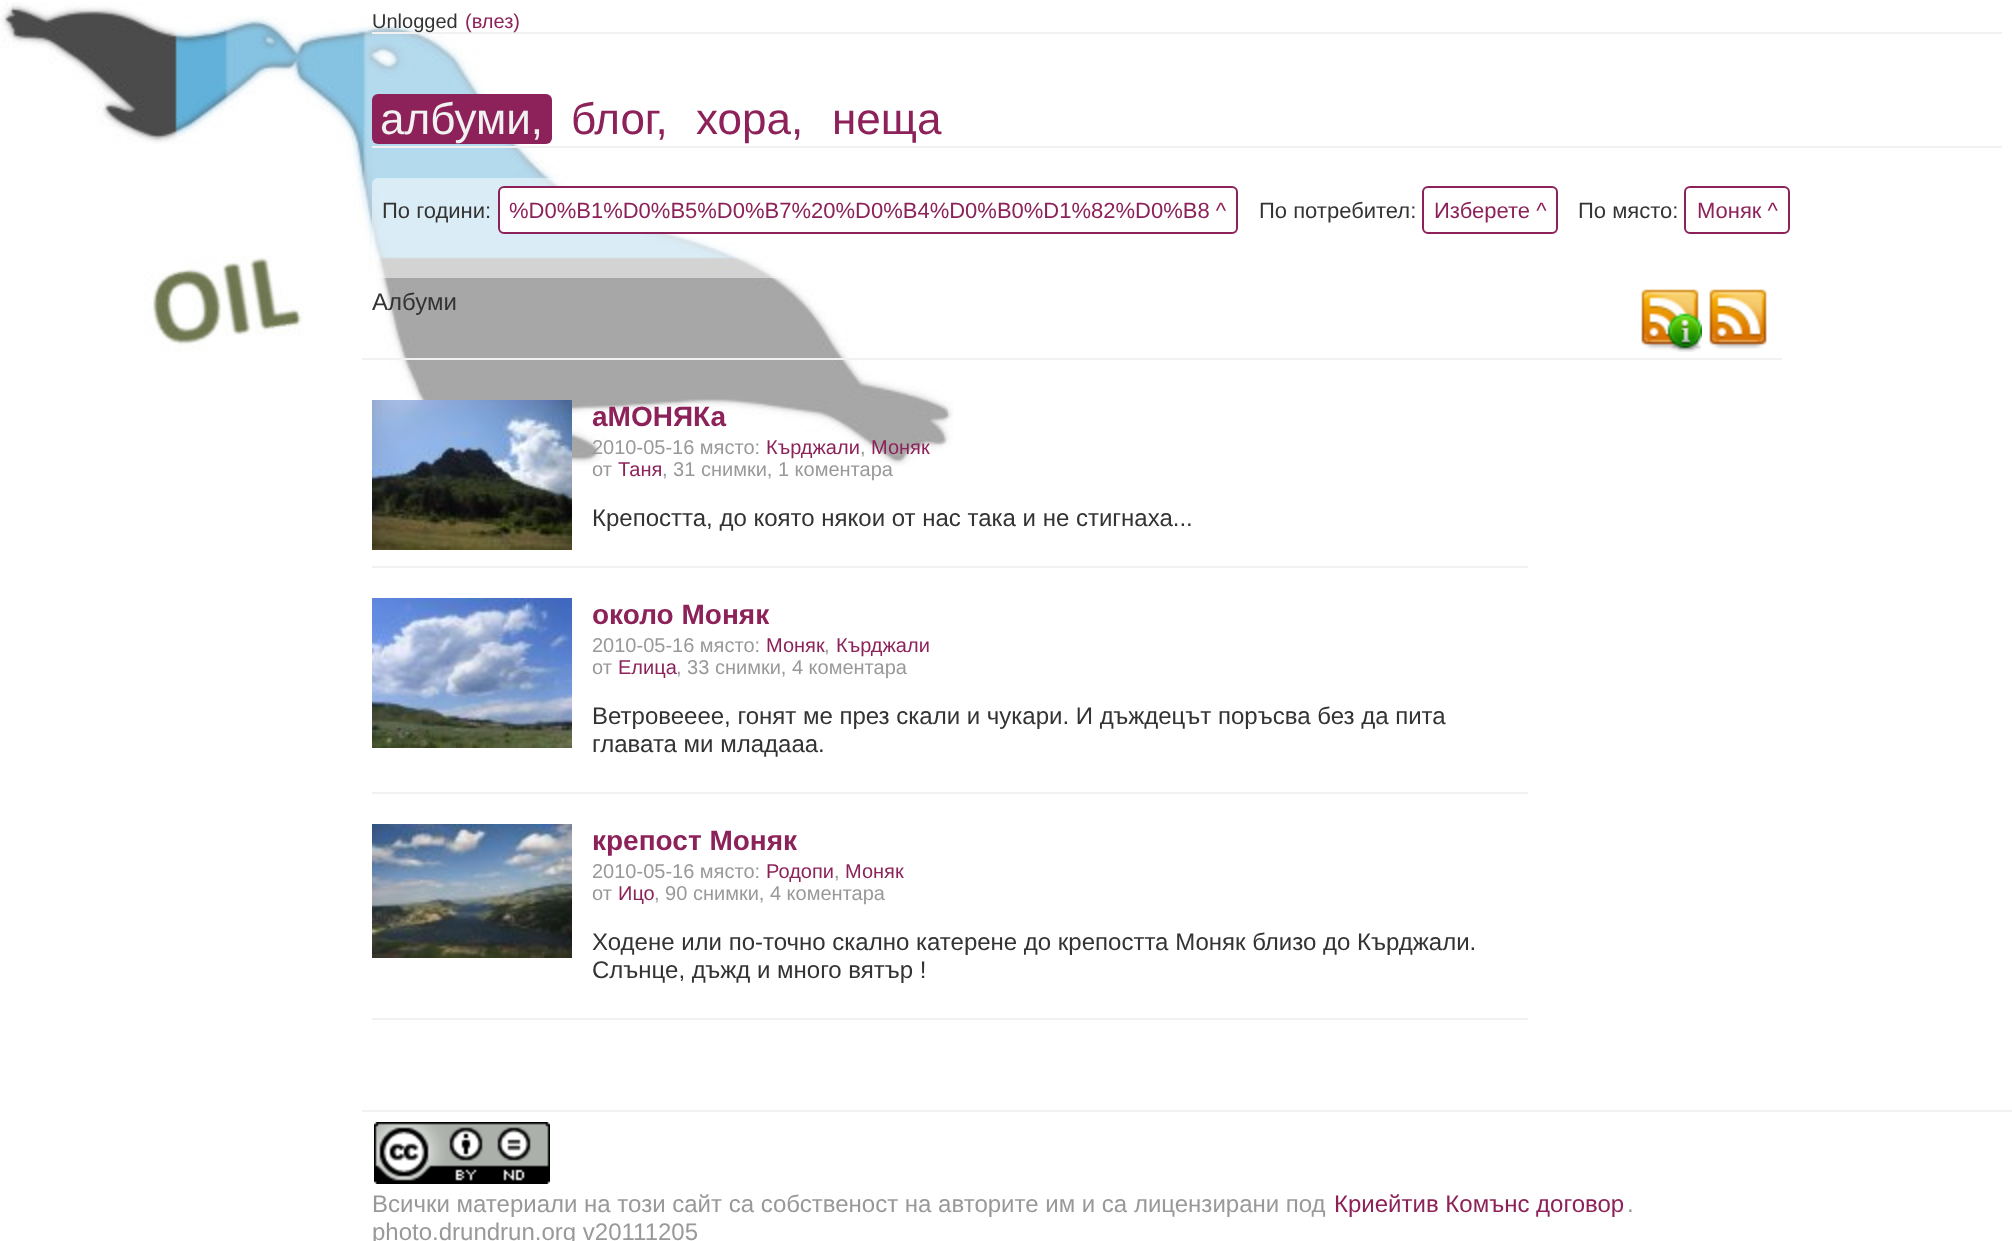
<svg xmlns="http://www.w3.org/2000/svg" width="2012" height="1241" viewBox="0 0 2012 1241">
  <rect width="100%" height="100%" fill="#fff"/>
  <image x="0" y="2" width="954" height="464" href="img/1.png"/>
  <path d="M372 32h1630v2H372z" fill="#f1f1f1"/>
  <path d="M372 146h1630v2H372z" fill="#f1f1f1"/>
  <rect x="372" y="94" width="180" height="50" rx="6" fill="#8c2259"/>
  <rect x="372" y="178" width="1640" height="100" rx="6" fill="#ffffff80"/>
  <rect x="499" y="187" width="738" height="46" rx="5" fill="#fff" stroke="#8c2259" stroke-width="2"/>
  <rect x="1423" y="187" width="134" height="46" rx="5" fill="none" stroke="#8c2259" stroke-width="2"/>
  <rect x="1685" y="187" width="104" height="46" rx="5" fill="none" stroke="#8c2259" stroke-width="2"/>
  <path d="M362 358h1420v2H362z" fill="#f1f1f1"/>
  <image x="1641" y="289" width="61" height="63" href="img/2.png"/>
  <image x="1709" y="289" width="58" height="60" href="img/3.png"/>
  <path d="M372 566h1156v2H372z" fill="#f1f1f1"/>
  <image x="372" y="400" width="200" height="150" href="img/4.png"/>
  <path d="M372 792h1156v2H372z" fill="#f1f1f1"/>
  <image x="372" y="598" width="200" height="150" href="img/5.png"/>
  <path d="M372 1018h1156v2H372z" fill="#f1f1f1"/>
  <image x="372" y="824" width="200" height="134" href="img/6.png"/>
  <path d="M362 1110h1650v2H362z" fill="#f1f1f1"/>
  <image x="374" y="1122" width="176" height="62" href="img/7.png"/>
  <text x="372" y="28" font-family="Liberation Sans" font-size="20" fill="#333">Unlogged</text>
  <text x="465" y="28" font-family="Liberation Sans" font-size="20" fill="#8c2259">(влез)</text>
  <text x="380" y="134" font-family="Liberation Sans" font-size="44" fill="#f1f1f1">албуми,</text>
  <g font-family="Liberation Sans" font-size="44" fill="#8c2259">
    <text x="571" y="134">блог,</text>
    <text x="696" y="134">хора,</text>
    <text x="832" y="134">неща</text>
  </g>
  <text x="382" y="218" font-family="Liberation Sans" font-size="22" fill="#333">По години:</text>
  <text x="509" y="218" font-family="Liberation Sans" font-size="22" fill="#8c2259">%D0%B1%D0%B5%D0%B7%20%D0%B4%D0%B0%D1%82%D0%B8 ^</text>
  <text x="1259" y="218" font-family="Liberation Sans" font-size="22" fill="#333">По потребител:</text>
  <text x="1434" y="218" font-family="Liberation Sans" font-size="22" fill="#8c2259">Изберете ^</text>
  <text x="1578" y="218" font-family="Liberation Sans" font-size="22" fill="#333">По място:</text>
  <text x="1697" y="218" font-family="Liberation Sans" font-size="22" fill="#8c2259">Моняк ^</text>
  <text x="372" y="310" font-family="Liberation Sans" font-size="24" fill="#333">Албуми</text>
  <text x="592" y="426" font-family="Liberation Sans" font-size="28" font-weight="bold" fill="#8c2259">аМОНЯКа</text>
  <text x="592" y="454" font-family="Liberation Sans" font-size="20" fill="#999">2010-05-16 място:</text>
  <text x="766" y="454" font-family="Liberation Sans" font-size="20" fill="#8c2259">Кърджали</text>
  <text x="860" y="454" font-family="Liberation Sans" font-size="20" fill="#999">,</text>
  <text x="871" y="454" font-family="Liberation Sans" font-size="20" fill="#8c2259">Моняк</text>
  <text x="592" y="476" font-family="Liberation Sans" font-size="20" fill="#999">от</text>
  <text x="618" y="476" font-family="Liberation Sans" font-size="20" fill="#8c2259">Таня</text>
  <text x="662" y="476" font-family="Liberation Sans" font-size="20" fill="#999">, 31 снимки, 1 коментара</text>
  <text x="592" y="526" font-family="Liberation Sans" font-size="24" fill="#333">Крепостта, до която някои от нас така и не стигнаха...</text>
  <text x="592" y="624" font-family="Liberation Sans" font-size="28" font-weight="bold" fill="#8c2259">около Моняк</text>
  <text x="592" y="652" font-family="Liberation Sans" font-size="20" fill="#999">2010-05-16 място:</text>
  <text x="766" y="652" font-family="Liberation Sans" font-size="20" fill="#8c2259">Моняк</text>
  <text x="824" y="652" font-family="Liberation Sans" font-size="20" fill="#999">,</text>
  <text x="836" y="652" font-family="Liberation Sans" font-size="20" fill="#8c2259">Кърджали</text>
  <text x="592" y="674" font-family="Liberation Sans" font-size="20" fill="#999">от</text>
  <text x="618" y="674" font-family="Liberation Sans" font-size="20" fill="#8c2259">Елица</text>
  <text x="676" y="674" font-family="Liberation Sans" font-size="20" fill="#999">, 33 снимки, 4 коментара</text>
  <g font-family="Liberation Sans" font-size="24" fill="#333">
    <text x="592" y="724">Ветровееее, гонят ме през скали и чукари. И дъждецът поръсва без да пита</text>
    <text x="592" y="752">главата ми младааа.</text>
  </g>
  <text x="592" y="850" font-family="Liberation Sans" font-size="28" font-weight="bold" fill="#8c2259">крепост Моняк</text>
  <text x="592" y="878" font-family="Liberation Sans" font-size="20" fill="#999">2010-05-16 място:</text>
  <text x="766" y="878" font-family="Liberation Sans" font-size="20" fill="#8c2259">Родопи</text>
  <text x="834" y="878" font-family="Liberation Sans" font-size="20" fill="#999">,</text>
  <text x="845" y="878" font-family="Liberation Sans" font-size="20" fill="#8c2259">Моняк</text>
  <text x="592" y="900" font-family="Liberation Sans" font-size="20" fill="#999">от</text>
  <text x="618" y="900" font-family="Liberation Sans" font-size="20" fill="#8c2259">Ицо</text>
  <text x="654" y="900" font-family="Liberation Sans" font-size="20" fill="#999">, 90 снимки, 4 коментара</text>
  <g font-family="Liberation Sans" font-size="24" fill="#333">
    <text x="592" y="950">Ходене или по-точно скално катерене до крепостта Моняк близо до Кърджали.</text>
    <text x="592" y="978">Слънце, дъжд и много вятър !</text>
  </g>
  <text x="372" y="1212" font-family="Liberation Sans" font-size="24" fill="#999">Всички материали на този сайт са собственост на авторите им и са лицензирани под</text>
  <text x="1334" y="1212" font-family="Liberation Sans" font-size="24" fill="#8c2259">Криейтив Комънс договор</text>
  <g font-family="Liberation Sans" font-size="24" fill="#999">
    <text x="1627" y="1212">.</text>
    <text x="372" y="1240">photo.drundrun.org v20111205</text>
  </g>
</svg>
